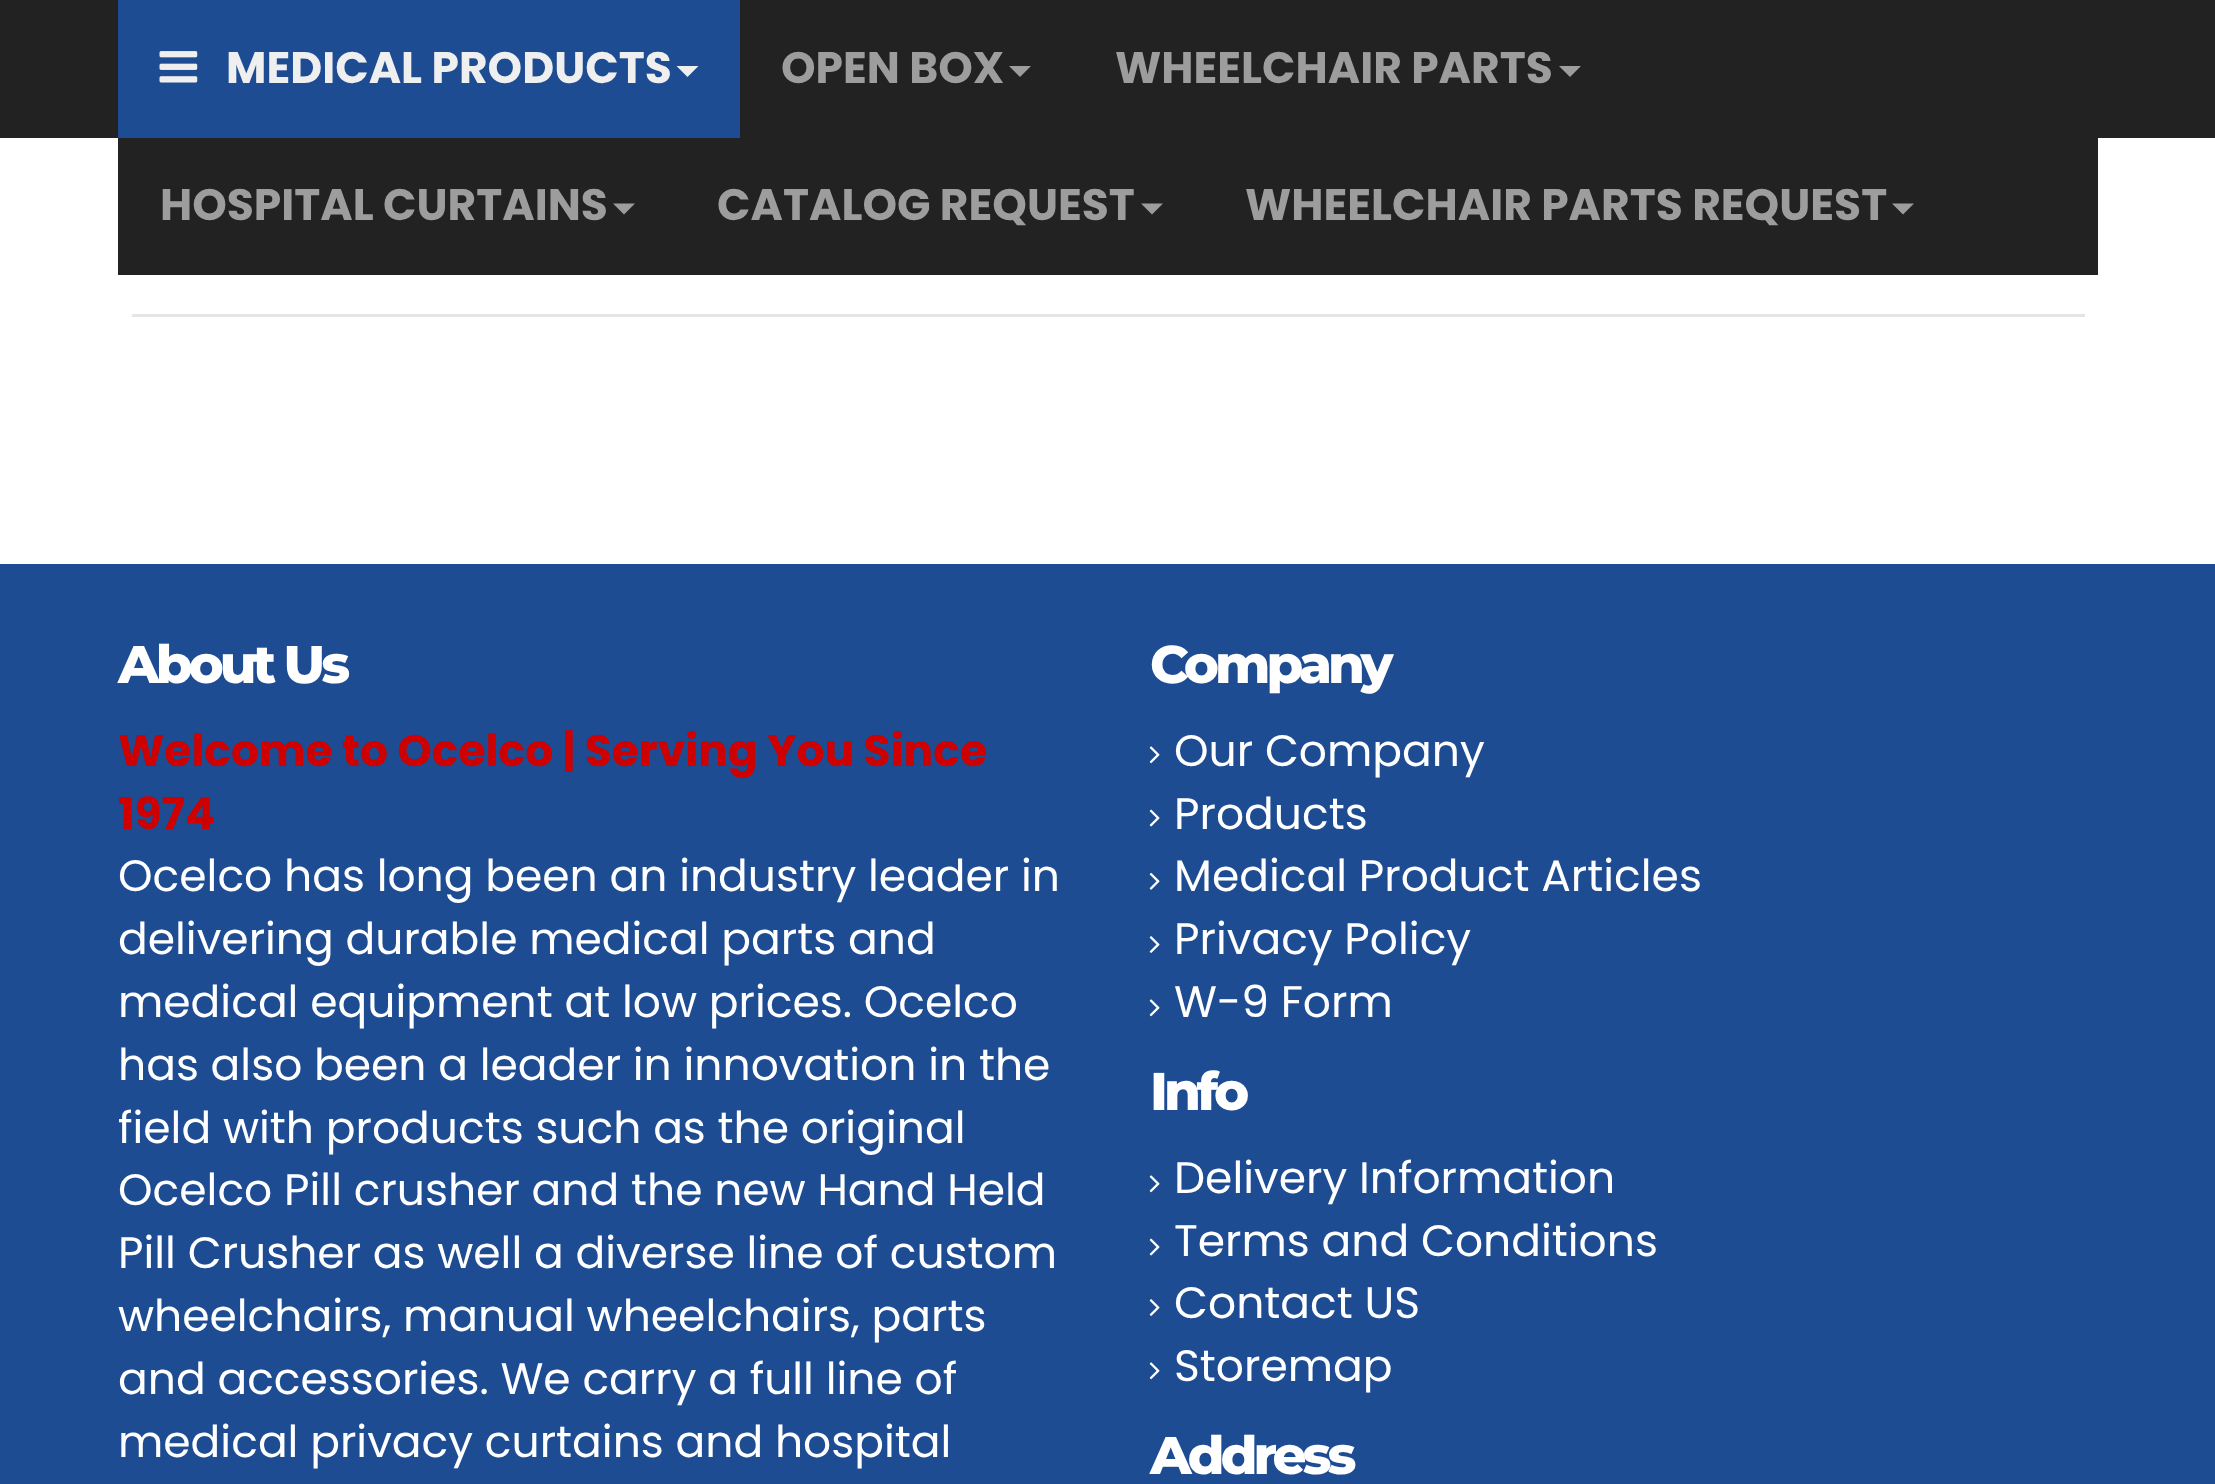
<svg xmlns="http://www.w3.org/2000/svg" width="2215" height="1484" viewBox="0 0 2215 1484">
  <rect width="100%" height="100%" fill="#fff"/>
  <path d="M0 0h2215v138H0z" fill="#222"/>
  <path d="M118 138h1980v137H118z" fill="#222"/>
  <path d="M118 0h622v138H118z" fill="#1d4c93"/>
  <image x="159" y="51" width="39" height="32" href="img/1.png"/>
  <path d="M676.5 66H698.5L687.5 77Z" fill="#efefef"/>
  <path d="M1009 66H1031L1020 77Z" fill="#9d9d9d"/>
  <path d="M1559 66H1581L1570 77Z" fill="#9d9d9d"/>
  <path d="M613 203.5H635L624 214.5Z" fill="#9d9d9d"/>
  <path d="M1141 203.5H1163L1152 214.5Z" fill="#9d9d9d"/>
  <path d="M1892 203.5H1914L1903 214.5Z" fill="#9d9d9d"/>
  <path d="M132 314h1953v3H132z" fill="#e5e5e5"/>
  <path d="M0 564h2215v920H0z" fill="#1d4c93"/>
  <image x="1149" y="746" width="11" height="18" href="img/2.png"/>
  <image x="1149" y="809" width="11" height="18" href="img/3.png"/>
  <image x="1149" y="872" width="11" height="18" href="img/4.png"/>
  <image x="1149" y="936" width="11" height="17" href="img/5.png"/>
  <image x="1149" y="999" width="11" height="18" href="img/2.png"/>
  <image x="1149" y="1175" width="11" height="18" href="img/2.png"/>
  <image x="1149" y="1238" width="11" height="18" href="img/3.png"/>
  <image x="1149" y="1299" width="11" height="17" href="img/5.png"/>
  <image x="1149" y="1362" width="11" height="18" href="img/2.png"/>
  <text x="226" y="83" font-family="Poppins" font-size="44" font-weight="bold" fill="#efefef">MEDICAL PRODUCTS</text>
  <g font-family="Poppins" font-size="44" font-weight="bold" fill="#9d9d9d">
    <text x="781" y="83">OPEN BOX</text>
    <text x="1115" y="83">WHEELCHAIR PARTS</text>
    <text x="160" y="220">HOSPITAL CURTAINS</text>
    <text x="717" y="220">CATALOG REQUEST</text>
    <text x="1245" y="220">WHEELCHAIR PARTS REQUEST</text>
  </g>
  <text x="118" y="683" font-family="Montserrat" font-size="53" font-weight="800" letter-spacing="-4" fill="#fff">About Us</text>
  <g font-family="Poppins" font-size="44" font-weight="bold" fill="#ce0000">
    <text x="118" y="766">Welcome to Ocelco | Serving You Since</text>
    <text x="118" y="829">1974</text>
  </g>
  <g font-family="Poppins" font-size="44" fill="#fff">
    <text x="118" y="891">Ocelco has long been an industry leader in</text>
    <text x="118" y="954">delivering durable medical parts and</text>
    <text x="118" y="1017">medical equipment at low prices. Ocelco</text>
    <text x="118" y="1080">has also been a leader in innovation in the</text>
    <text x="118" y="1143">field with products such as the original</text>
    <text x="118" y="1205">Ocelco Pill crusher and the new Hand Held</text>
    <text x="118" y="1268">Pill Crusher as well a diverse line of custom</text>
    <text x="118" y="1331">wheelchairs, manual wheelchairs, parts</text>
    <text x="118" y="1394">and accessories. We carry a full line of</text>
    <text x="118" y="1457">medical privacy curtains and hospital</text>
  </g>
  <text x="1150" y="683" font-family="Montserrat" font-size="53" font-weight="800" letter-spacing="-4" fill="#fff">Company</text>
  <g font-family="Poppins" font-size="44" fill="#fff">
    <text x="1174" y="766">Our Company</text>
    <text x="1174" y="829">Products</text>
    <text x="1174" y="891">Medical Product Articles</text>
    <text x="1174" y="954">Privacy Policy</text>
    <text x="1174" y="1017">W-9 Form</text>
  </g>
  <text x="1150" y="1110" font-family="Montserrat" font-size="53" font-weight="800" letter-spacing="-4" fill="#fff">Info</text>
  <g font-family="Poppins" font-size="44" fill="#fff">
    <text x="1174" y="1193">Delivery Information</text>
    <text x="1174" y="1256">Terms and Conditions</text>
    <text x="1174" y="1318">Contact US</text>
    <text x="1174" y="1381">Storemap</text>
  </g>
  <text x="1150" y="1474" font-family="Montserrat" font-size="53" font-weight="800" letter-spacing="-4" fill="#fff">Address</text>
</svg>
